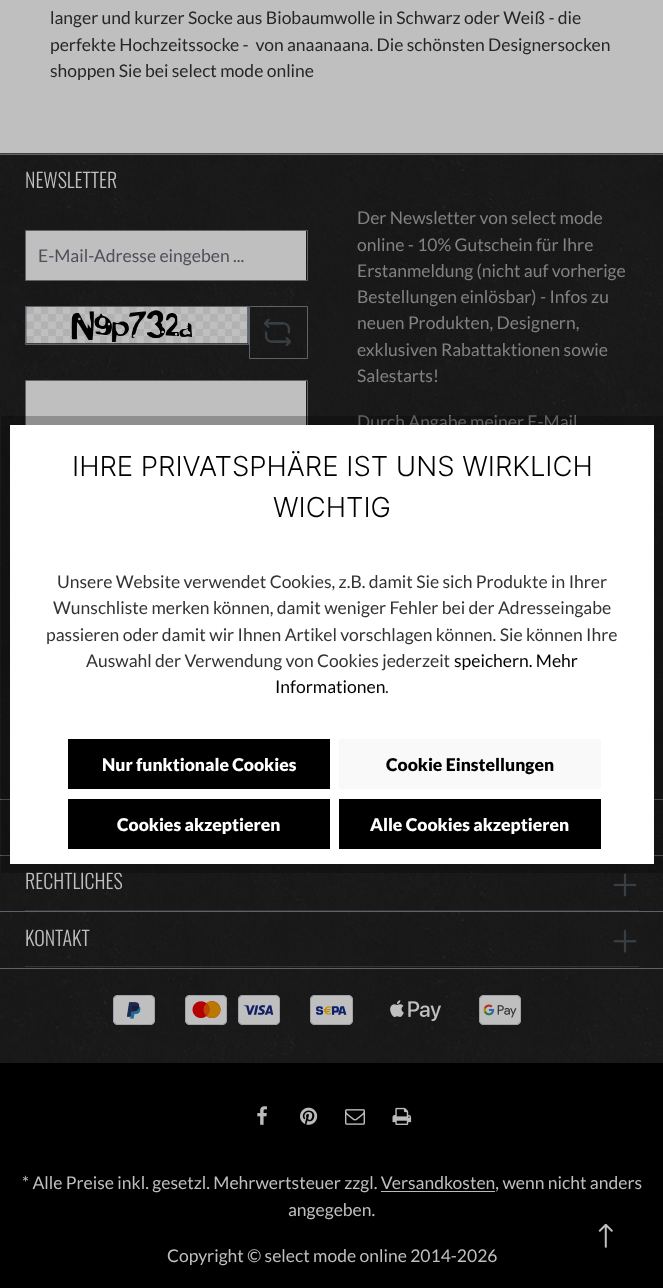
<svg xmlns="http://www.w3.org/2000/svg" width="663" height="1288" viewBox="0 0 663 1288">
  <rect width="100%" height="100%" fill="#bfbfbf"/>
  <image x="0" y="153" width="663" height="910" href="img/1.png"/>
  <path d="M0 154h663v1H0z" fill="#5b636c"/>
  <path d="M26 231h280v49H26z" fill="#bfbfbf"/>
  <path d="M25.5 230.5h282v50H25.5z" fill="none" stroke="#5b636c"/>
  <path d="M25.5 306.5h223v38H25.5z" fill="none" stroke="#5b636c"/>
  <image x="26" y="307" width="222" height="37" href="img/2.png"/>
  <path d="M249.5 306.5h58v52H249.5z" fill="none" stroke="#5b636c"/>
  <image x="264" y="319" width="27" height="27" href="img/3.png"/>
  <path d="M26 381h280v44H26z" fill="#bfbfbf"/>
  <path d="M25.5 380.5h282v50H25.5z" fill="none" stroke="#5b636c"/>
  <path d="M0 799h663v1H0z" fill="#5b636c"/>
  <path d="M0 855h663v1H0z" fill="#5b636c"/>
  <path d="M0 911h663v1H0z" fill="#5b636c"/>
  <path d="M25 910h614v1H25z" fill="#323232"/>
  <image x="613" y="873" width="24" height="24" href="img/4.png"/>
  <path d="M0 968h663v1H0z" fill="#5b636c"/>
  <path d="M25 966h614v1H25z" fill="#323232"/>
  <image x="613" y="929" width="24" height="24" href="img/5.png"/>
  <image x="113" y="995" width="42" height="30" href="img/6.png"/>
  <image x="185" y="995" width="95" height="30" href="img/7.png"/>
  <image x="310" y="995" width="43" height="30" href="img/8.png"/>
  <image x="390" y="1000" width="51" height="22" href="img/9.png"/>
  <image x="479" y="995" width="42" height="30" href="img/10.png"/>
  <path d="M0 1063h663v225H0z" fill="#000"/>
  <image x="257" y="1106" width="10" height="19" href="img/11.png"/>
  <image x="300" y="1107" width="18" height="18" href="img/12.png"/>
  <image x="345" y="1109" width="20" height="16" href="img/13.png"/>
  <image x="392" y="1107" width="20" height="18" href="img/14.png"/>
  <image x="598" y="1224" width="15" height="24" href="img/15.png"/>
  <g font-family="Lato" font-size="17.5" fill="#262626">
    <text x="50" y="24">langer und kurzer Socke aus Biobaumwolle in Schwarz oder Weiß - die</text>
    <text x="50" y="51" xml:space="preserve">perfekte Hochzeitssocke -  von anaanaana. Die schönsten Designersocken</text>
    <text x="50" y="77">shoppen Sie bei select mode online</text>
  </g>
  <text x="25" y="188" font-family="Oswald" font-size="20" font-weight="300" fill="#bfbfbf">NEWSLETTER</text>
  <text x="38" y="262" font-family="Lato" font-size="17.5" fill="#4d4f59">E-Mail-Adresse eingeben ...</text>
  <g font-family="Lato" font-size="17.5" fill="#828282">
    <text x="357" y="224">Der Newsletter von select mode</text>
    <text x="357" y="251">online - 10% Gutschein für Ihre</text>
    <text x="357" y="277">Erstanmeldung (nicht auf vorherige</text>
    <text x="357" y="303">Bestellungen einlösbar) - Infos zu</text>
    <text x="357" y="329">neuen Produkten, Designern,</text>
    <text x="357" y="356">exklusiven Rabattaktionen sowie</text>
    <text x="357" y="382">Salestarts!</text>
    <text x="357" y="428">Durch Angabe meiner E-Mail</text>
  </g>
  <g font-family="Oswald" font-size="20" font-weight="300" fill="#bfbfbf">
    <text x="25" y="889">RECHTLICHES</text>
    <text x="25" y="946">KONTAKT</text>
  </g>
  <text x="22" y="1189" font-family="Lato" font-size="17.5" fill="#bfbfbf">* Alle Preise inkl. gesetzl. Mehrwertsteuer zzgl. Versandkosten, wenn nicht anders</text>
  <path d="M381 1191h114v1H381z" fill="#bbb"/>
  <g font-family="Lato" font-size="17.5" fill="#bfbfbf">
    <text x="288" y="1216">angegeben.</text>
    <text x="167" y="1262">Copyright © select mode online 2014-2026</text>
  </g>
  <path d="M5.5 420.5h653v448H5.5z" fill="none" stroke="#00000040" stroke-width="9"/>
  <path d="M10 425h644v439H10z" fill="#fff"/>
  <g font-family="Inter" font-size="27.5" font-weight="300" fill="#000">
    <text x="72" y="476">IHRE PRIVATSPHÄRE IST UNS WIRKLICH</text>
    <text x="273" y="517">WICHTIG</text>
  </g>
  <g font-family="Lato" font-size="17.5" fill="#333">
    <text x="57" y="588">Unsere Website verwendet Cookies, z.B. damit Sie sich Produkte in Ihrer</text>
    <text x="53" y="614">Wunschliste merken können, damit weniger Fehler bei der Adresseingabe</text>
    <text x="46" y="641">passieren oder damit wir Ihnen Artikel vorschlagen können. Sie können Ihre</text>
    <text x="86" y="667">Auswahl der Verwendung von Cookies jederzeit</text>
  </g>
  <g font-family="Lato" font-size="17.5" fill="#000">
    <text x="454" y="667">speichern. Mehr</text>
    <text x="275" y="693">Informationen</text>
  </g>
  <text x="385" y="693" font-family="Lato" font-size="17.5" fill="#333">.</text>
  <path d="M68 739h262v50H68z" fill="#000"/>
  <text x="102" y="771" font-family="Lato" font-size="17.5" font-weight="900" fill="#fff">Nur funktionale Cookies</text>
  <path d="M339 739h262v50H339z" fill="#f9f9f9"/>
  <text x="386" y="771" font-family="Lato" font-size="17.5" font-weight="900" fill="#000">Cookie Einstellungen</text>
  <path d="M68 799h262v50H68z" fill="#000"/>
  <text x="117" y="831" font-family="Lato" font-size="17.5" font-weight="900" fill="#fff">Cookies akzeptieren</text>
  <path d="M339 799h262v50H339z" fill="#000"/>
  <text x="370" y="831" font-family="Lato" font-size="17.5" font-weight="900" fill="#fff">Alle Cookies akzeptieren</text>
</svg>
